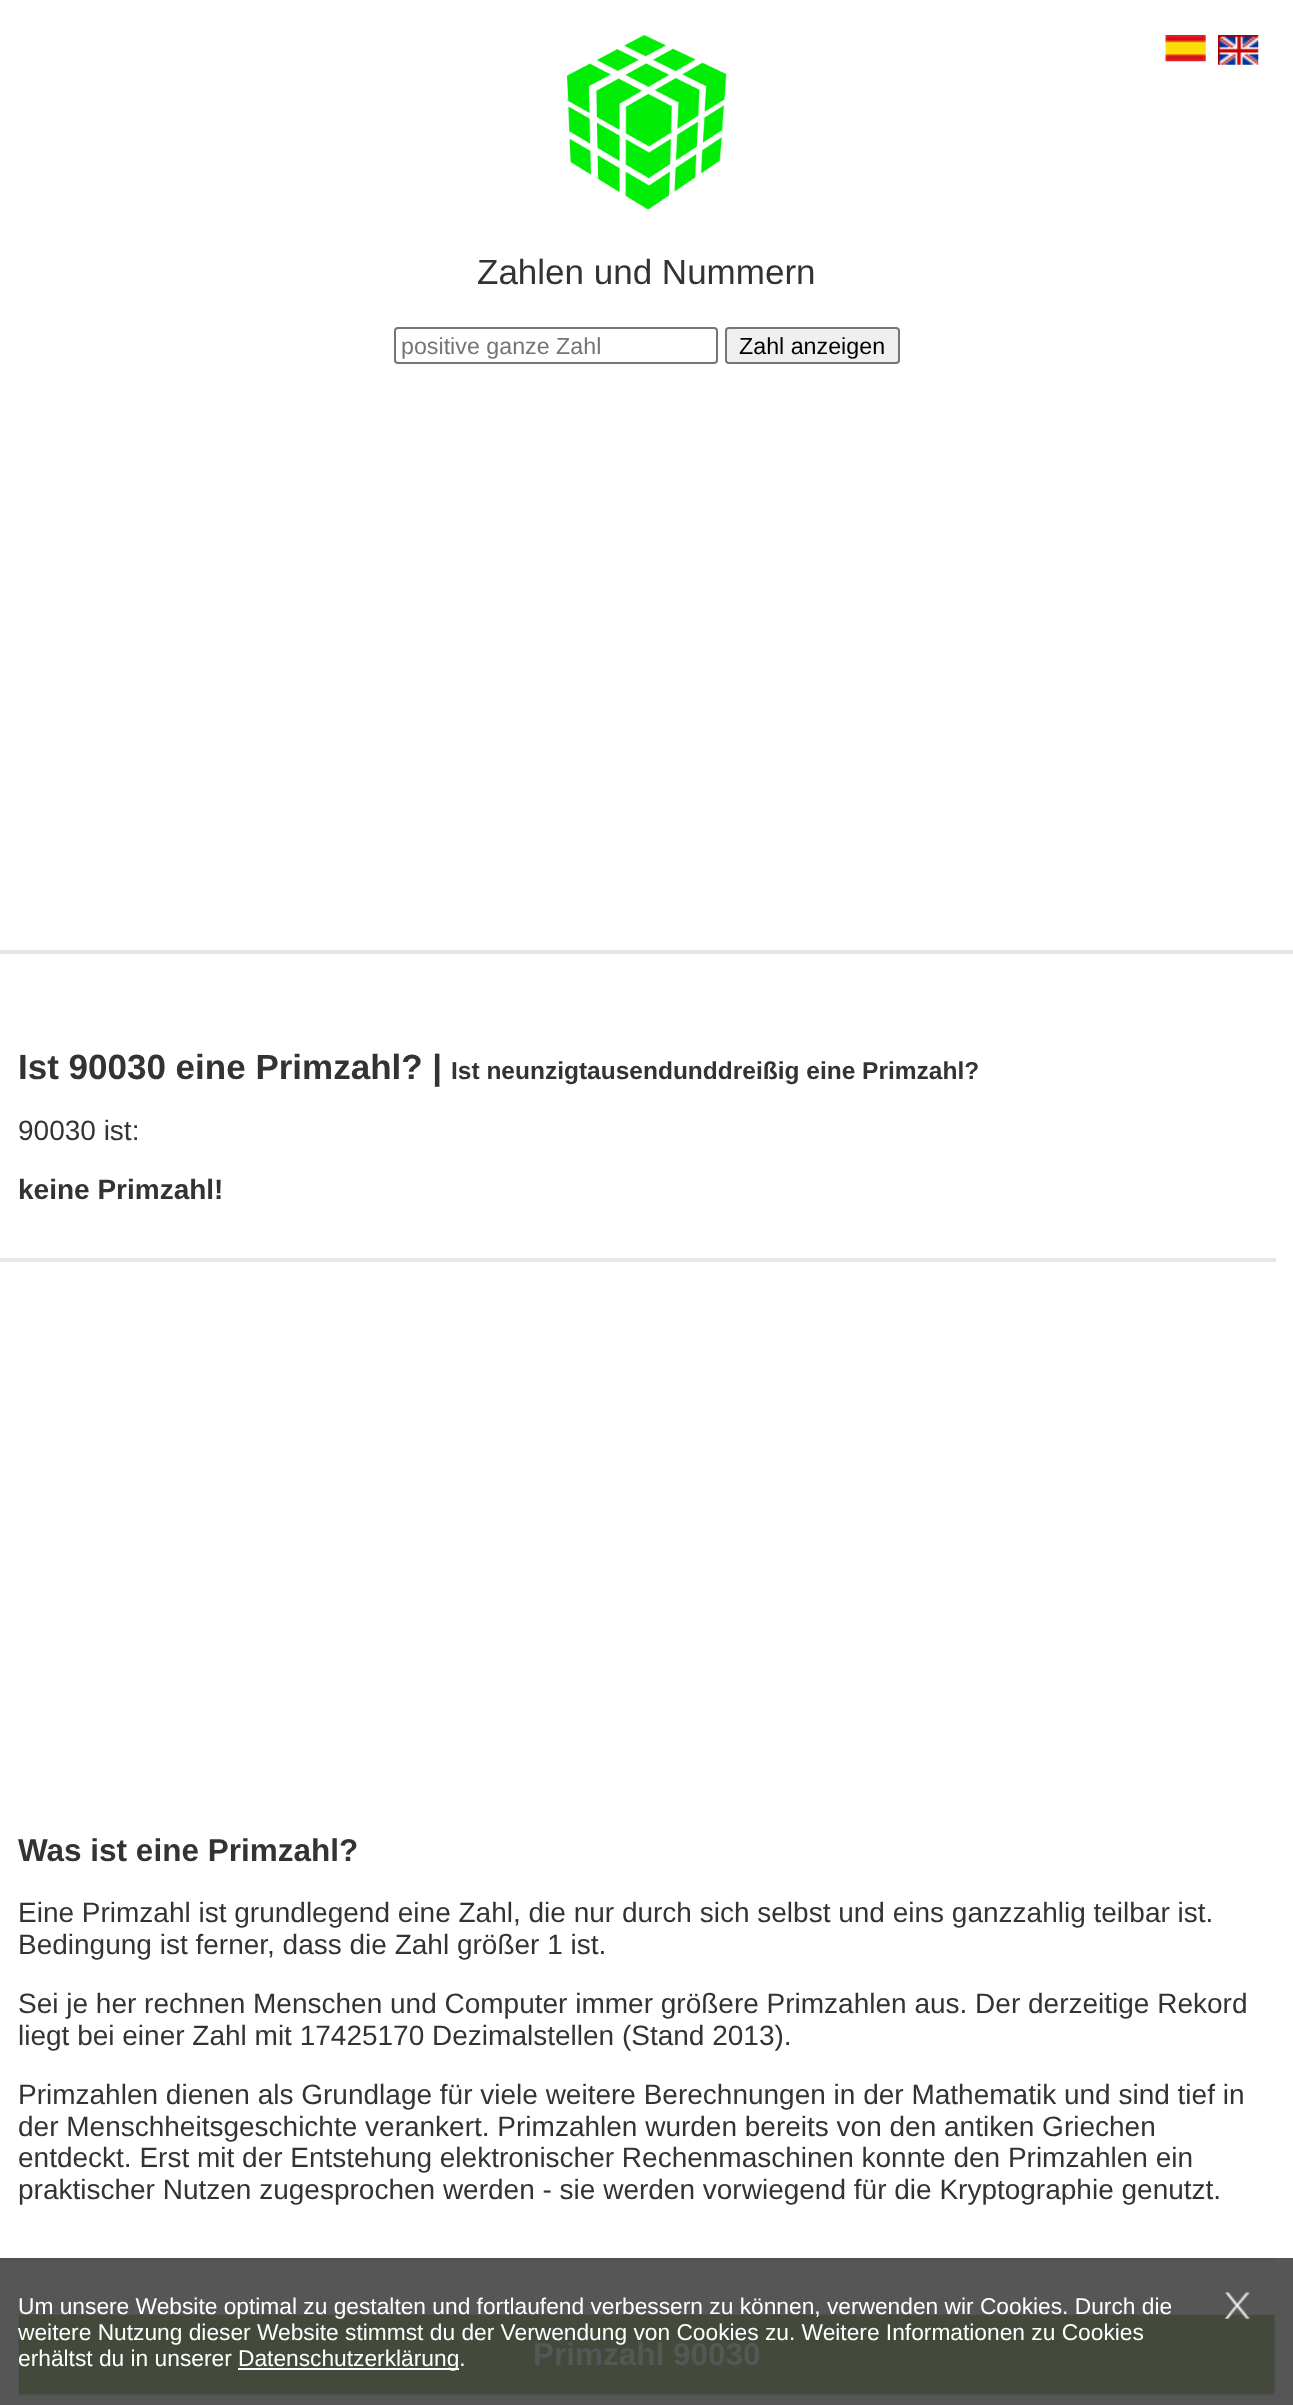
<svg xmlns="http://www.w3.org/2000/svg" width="1293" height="2405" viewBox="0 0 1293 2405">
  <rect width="100%" height="100%" fill="#fff"/>
  <path d="M0 2258h1293v147H0z" fill="#565656"/>
  <image x="1165" y="35" width="41" height="27" href="img/1.png"/>
  <image x="1218" y="35" width="41" height="30" href="img/2.png"/>
  <image x="567" y="35" width="160" height="175" href="img/3.png"/>
  <rect x="395" y="328" width="322" height="35" rx="3" fill="none" stroke="#767676" stroke-width="2"/>
  <rect x="726" y="328" width="173" height="35" rx="3" fill="#efefef" stroke="#767676" stroke-width="2"/>
  <path d="M0 950h1293v4H0z" fill="#e7e7e7"/>
  <path d="M0 1258h1276v4H0z" fill="#e7e7e7"/>
  <path d="M0 2258h1276v4H0z" fill="#535353"/>
  <path d="M19 2315h1256v80H19z" fill="none" stroke="#525252" stroke-width="2"/>
  <path d="M19 2315h1255v79H19z" fill="#434a3c"/>
  <path d="M238 2368h221v2H238z" fill="#fff"/>
  <image x="1225" y="2292" width="25" height="27" href="img/4.png"/>
  <text x="477" y="284" font-family="Liberation Sans" font-size="35" fill="#333">Zahlen und Nummern</text>
  <text x="401" y="354" font-family="Liberation Sans" font-size="23.25" fill="#757575">positive ganze Zahl</text>
  <text x="739" y="354" font-family="Liberation Sans" font-size="23.25" fill="#000">Zahl anzeigen</text>
  <text x="18" y="1079" font-family="Liberation Sans" font-size="35" font-weight="bold" fill="#333">Ist 90030 eine Primzahl? |</text>
  <text x="451" y="1079" font-family="Liberation Sans" font-size="24.5" font-weight="bold" fill="#333">Ist neunzigtausendunddreißig eine Primzahl?</text>
  <text x="18" y="1140" font-family="Liberation Sans" font-size="28" fill="#333">90030 ist:</text>
  <text x="18" y="1199" font-family="Liberation Sans" font-size="28" font-weight="bold" fill="#333">keine Primzahl!</text>
  <text x="18" y="1861" font-family="Liberation Sans" font-size="31.5" font-weight="bold" fill="#333">Was ist eine Primzahl?</text>
  <g font-family="Liberation Sans" font-size="28" fill="#333">
    <text x="18" y="1922">Eine Primzahl ist grundlegend eine Zahl, die nur durch sich selbst und eins ganzzahlig teilbar ist.</text>
    <text x="18" y="1954">Bedingung ist ferner, dass die Zahl größer 1 ist.</text>
    <text x="18" y="2013">Sei je her rechnen Menschen und Computer immer größere Primzahlen aus. Der derzeitige Rekord</text>
    <text x="18" y="2045">liegt bei einer Zahl mit 17425170 Dezimalstellen (Stand 2013).</text>
    <text x="18" y="2104">Primzahlen dienen als Grundlage für viele weitere Berechnungen in der Mathematik und sind tief in</text>
    <text x="18" y="2136">der Menschheitsgeschichte verankert. Primzahlen wurden bereits von den antiken Griechen</text>
    <text x="18" y="2167">entdeckt. Erst mit der Entstehung elektronischer Rechenmaschinen konnte den Primzahlen ein</text>
    <text x="18" y="2199">praktischer Nutzen zugesprochen werden - sie werden vorwiegend für die Kryptographie genutzt.</text>
  </g>
  <text x="533" y="2365" font-family="Liberation Sans" font-size="31.5" font-weight="bold" fill="#565656">Primzahl 90030</text>
  <g font-family="Liberation Sans" font-size="22.75" fill="#fff">
    <text x="18" y="2314">Um unsere Website optimal zu gestalten und fortlaufend verbessern zu können, verwenden wir Cookies. Durch die</text>
    <text x="18" y="2340">weitere Nutzung dieser Website stimmst du der Verwendung von Cookies zu. Weitere Informationen zu Cookies</text>
    <text x="18" y="2366">erhältst du in unserer</text>
    <text x="238" y="2366">Datenschutzerklärung.</text>
  </g>
</svg>
